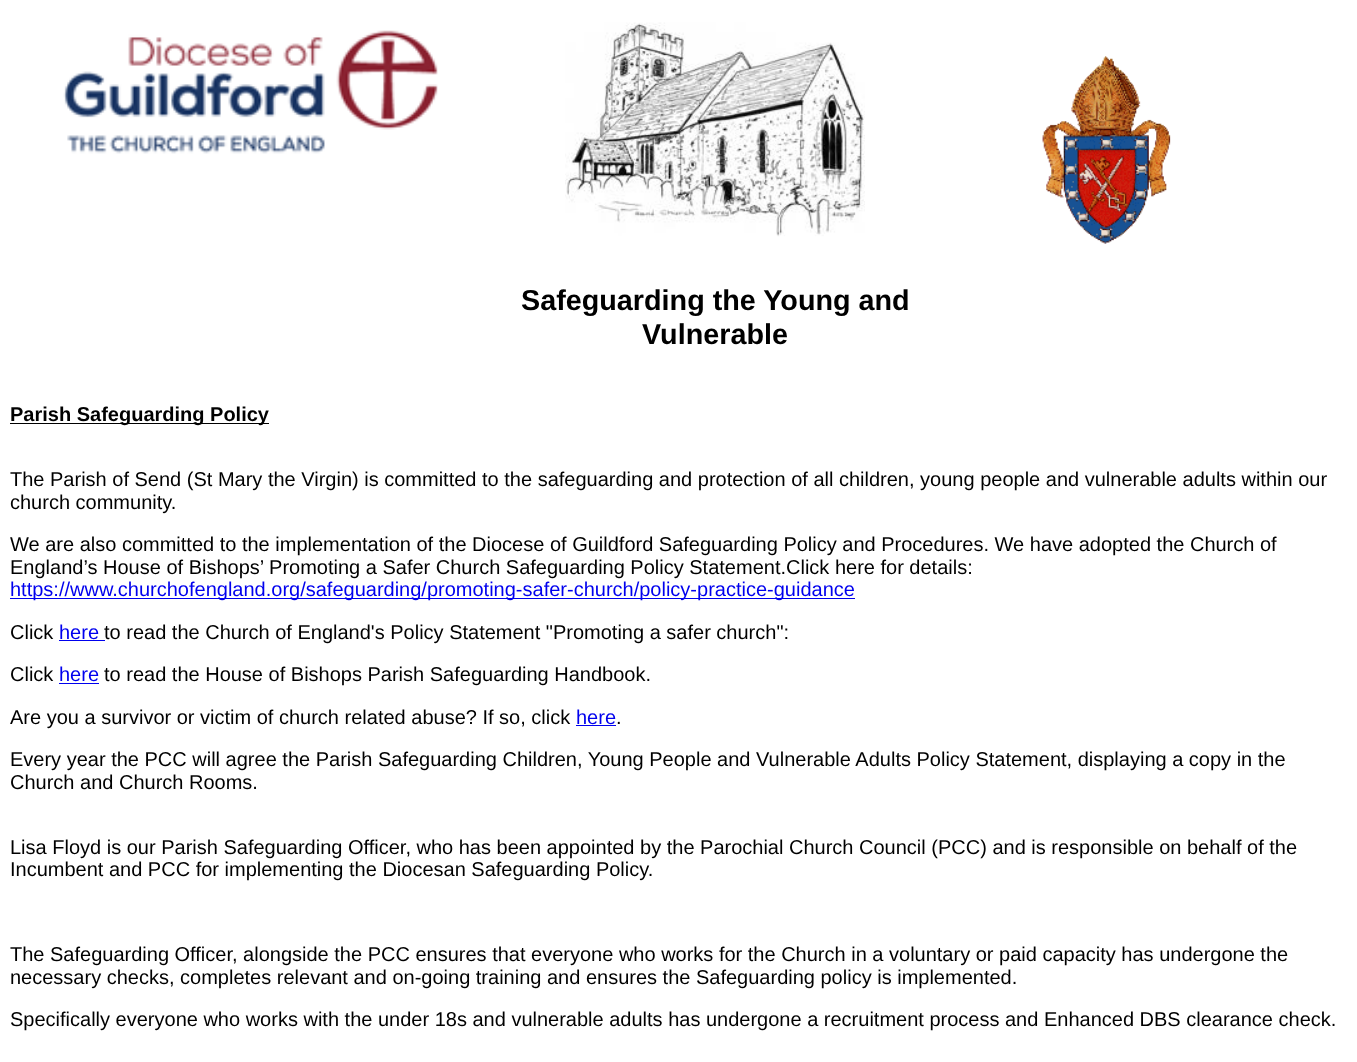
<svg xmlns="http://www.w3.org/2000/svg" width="1357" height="1062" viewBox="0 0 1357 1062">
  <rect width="100%" height="100%" fill="#fff"/>
  <image x="63" y="30" width="375" height="124" href="img/1.png"/>
  <image x="565" y="22" width="300" height="215" href="img/2.png"/>
  <image x="1042" y="56" width="129" height="188" href="img/3.png"/>
  <path d="M10 423h259v1H10z" fill="#000"/>
  <path d="M10 598h845v1H10z" fill="#00e"/>
  <path d="M59 640h46v1H59z" fill="#00e"/>
  <path d="M59 683h40v1H59z" fill="#00e"/>
  <path d="M576 725h40v1H576z" fill="#00e"/>
  <g font-family="Liberation Sans" font-size="28.75" font-weight="bold" fill="#000">
    <text x="521" y="310">Safeguarding the Young and</text>
    <text x="642" y="344">Vulnerable</text>
  </g>
  <text x="10" y="421" font-family="Liberation Sans" font-size="20" font-weight="bold" fill="#000">Parish Safeguarding Policy</text>
  <g font-family="Liberation Sans" font-size="20" fill="#000">
    <text x="10" y="486">The Parish of Send (St Mary the Virgin) is committed to the safeguarding and protection of all children, young people and vulnerable adults within our</text>
    <text x="10" y="509">church community.</text>
    <text x="10" y="551">We are also committed to the implementation of the Diocese of Guildford Safeguarding Policy and Procedures. We have adopted the Church of</text>
    <text x="10" y="574">England’s House of Bishops’ Promoting a Safer Church Safeguarding Policy Statement.Click here for details:</text>
  </g>
  <text x="10" y="596" font-family="Liberation Sans" font-size="20" fill="#00e">https://www.churchofengland.org/safeguarding/promoting-safer-church/policy-practice-guidance</text>
  <text x="10" y="639" font-family="Liberation Sans" font-size="20" fill="#000">Click</text>
  <text x="59" y="639" font-family="Liberation Sans" font-size="20" fill="#00e">here</text>
  <g font-family="Liberation Sans" font-size="20" fill="#000">
    <text x="104" y="639">to read the Church of England's Policy Statement "Promoting a safer church":</text>
    <text x="10" y="681">Click</text>
  </g>
  <text x="59" y="681" font-family="Liberation Sans" font-size="20" fill="#00e">here</text>
  <g font-family="Liberation Sans" font-size="20" fill="#000">
    <text x="104" y="681">to read the House of Bishops Parish Safeguarding Handbook.</text>
    <text x="10" y="724">Are you a survivor or victim of church related abuse? If so, click</text>
  </g>
  <text x="576" y="724" font-family="Liberation Sans" font-size="20" fill="#00e">here</text>
  <g font-family="Liberation Sans" font-size="20" fill="#000">
    <text x="616" y="724">.</text>
    <text x="10" y="766">Every year the PCC will agree the Parish Safeguarding Children, Young People and Vulnerable Adults Policy Statement, displaying a copy in the</text>
    <text x="10" y="789">Church and Church Rooms.</text>
    <text x="10" y="854">Lisa Floyd is our Parish Safeguarding Officer, who has been appointed by the Parochial Church Council (PCC) and is responsible on behalf of the</text>
    <text x="10" y="876">Incumbent and PCC for implementing the Diocesan Safeguarding Policy.</text>
    <text x="10" y="961">The Safeguarding Officer, alongside the PCC ensures that everyone who works for the Church in a voluntary or paid capacity has undergone the</text>
    <text x="10" y="984">necessary checks, completes relevant and on-going training and ensures the Safeguarding policy is implemented.</text>
    <text x="10" y="1026">Specifically everyone who works with the under 18s and vulnerable adults has undergone a recruitment process and Enhanced DBS clearance check.</text>
  </g>
</svg>
